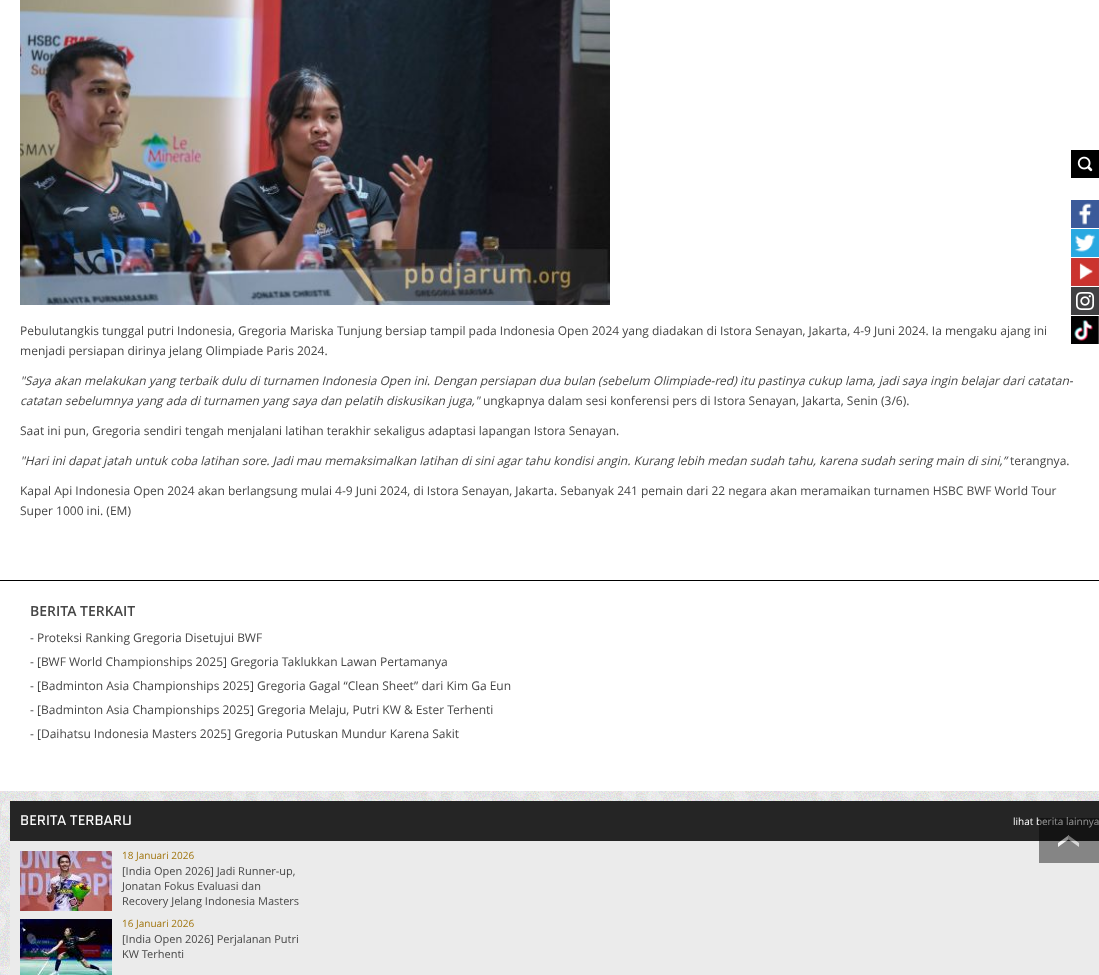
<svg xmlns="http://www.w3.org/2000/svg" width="1099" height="975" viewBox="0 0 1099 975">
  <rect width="100%" height="100%" fill="#fff"/>
  <image x="0" y="791" width="1099" height="184" href="img/1.png"/>
  <image x="1071" y="150" width="28" height="28" href="img/2.png"/>
  <image x="1071" y="200" width="28" height="28" href="img/3.png"/>
  <image x="1071" y="229" width="28" height="28" href="img/4.png"/>
  <image x="1071" y="258" width="28" height="28" href="img/5.png"/>
  <image x="1071" y="287" width="28" height="28" href="img/6.png"/>
  <image x="1071" y="316" width="28" height="28" href="img/7.png"/>
  <image x="20" y="0" width="590" height="305" href="img/8.png"/>
  <path d="M0 580h1099v1H0z" fill="#000"/>
  <path d="M10 801h1089v40H10z" fill="#252525"/>
  <path d="M10 841h1089v134H10z" fill="#ebebeb"/>
  <image x="20" y="851" width="92" height="60" href="img/9.png"/>
  <image x="20" y="919" width="92" height="56" href="img/10.png"/>
  <g font-family="Open Sans" font-size="12" fill="#464646">
    <text x="20" y="335">Pebulutangkis tunggal putri Indonesia, Gregoria Mariska Tunjung bersiap tampil pada Indonesia Open 2024 yang diadakan di Istora Senayan, Jakarta, 4-9 Juni 2024. Ia mengaku ajang ini</text>
    <text x="20" y="355">menjadi persiapan dirinya jelang Olimpiade Paris 2024.</text>
  </g>
  <g font-family="Open Sans" font-size="12" font-style="italic" fill="#464646">
    <text x="20" y="385">"Saya akan melakukan yang terbaik dulu di turnamen Indonesia Open ini. Dengan persiapan dua bulan (sebelum Olimpiade-red) itu pastinya cukup lama, jadi saya ingin belajar dari catatan-</text>
    <text x="20" y="405">catatan sebelumnya yang ada di turnamen yang saya dan pelatih diskusikan juga,"</text>
  </g>
  <g font-family="Open Sans" font-size="12" fill="#464646">
    <text x="483" y="405">ungkapnya dalam sesi konferensi pers di Istora Senayan, Jakarta, Senin (3/6).</text>
    <text x="20" y="435">Saat ini pun, Gregoria sendiri tengah menjalani latihan terakhir sekaligus adaptasi lapangan Istora Senayan.</text>
  </g>
  <text x="20" y="465" font-family="Open Sans" font-size="12" font-style="italic" fill="#464646">"Hari ini dapat jatah untuk coba latihan sore. Jadi mau memaksimalkan latihan di sini agar tahu kondisi angin. Kurang lebih medan sudah tahu, karena sudah sering main di sini,”</text>
  <g font-family="Open Sans" font-size="12" fill="#464646">
    <text x="1010" y="465">terangnya.</text>
    <text x="20" y="495">Kapal Api Indonesia Open 2024 akan berlangsung mulai 4-9 Juni 2024, di Istora Senayan, Jakarta. Sebanyak 241 pemain dari 22 negara akan meramaikan turnamen HSBC BWF World Tour</text>
    <text x="20" y="515">Super 1000 ini. (EM)</text>
  </g>
  <text x="30" y="616" font-family="Open Sans" font-size="14" font-weight="600" fill="#464646">BERITA TERKAIT</text>
  <g font-family="Open Sans" font-size="12" fill="#464646">
    <text x="30" y="642">- Proteksi Ranking Gregoria Disetujui BWF</text>
    <text x="30" y="666">- [BWF World Championships 2025] Gregoria Taklukkan Lawan Pertamanya</text>
    <text x="30" y="690">- [Badminton Asia Championships 2025] Gregoria Gagal “Clean Sheet” dari Kim Ga Eun</text>
    <text x="30" y="714">- [Badminton Asia Championships 2025] Gregoria Melaju, Putri KW &amp; Ester Terhenti</text>
    <text x="30" y="738">- [Daihatsu Indonesia Masters 2025] Gregoria Putuskan Mundur Karena Sakit</text>
  </g>
  <text x="20" y="825" font-family="quantico" font-size="14" fill="#fff">BERITA TERBARU</text>
  <text x="1013" y="825" font-family="Open Sans" font-size="10" fill="#fff">lihat berita lainnya</text>
  <text x="122" y="859" font-family="Open Sans" font-size="10" fill="#a0750e">18 Januari 2026</text>
  <g font-family="Open Sans" font-size="11" fill="#464646">
    <text x="122" y="875">[India Open 2026] Jadi Runner-up,</text>
    <text x="122" y="890">Jonatan Fokus Evaluasi dan</text>
    <text x="122" y="905">Recovery Jelang Indonesia Masters</text>
  </g>
  <text x="122" y="927" font-family="Open Sans" font-size="10" fill="#a0750e">16 Januari 2026</text>
  <g font-family="Open Sans" font-size="11" fill="#464646">
    <text x="122" y="943">[India Open 2026] Perjalanan Putri</text>
    <text x="122" y="958">KW Terhenti</text>
  </g>
  <image x="1039" y="818" width="60" height="45" href="img/11.png"/>
</svg>
